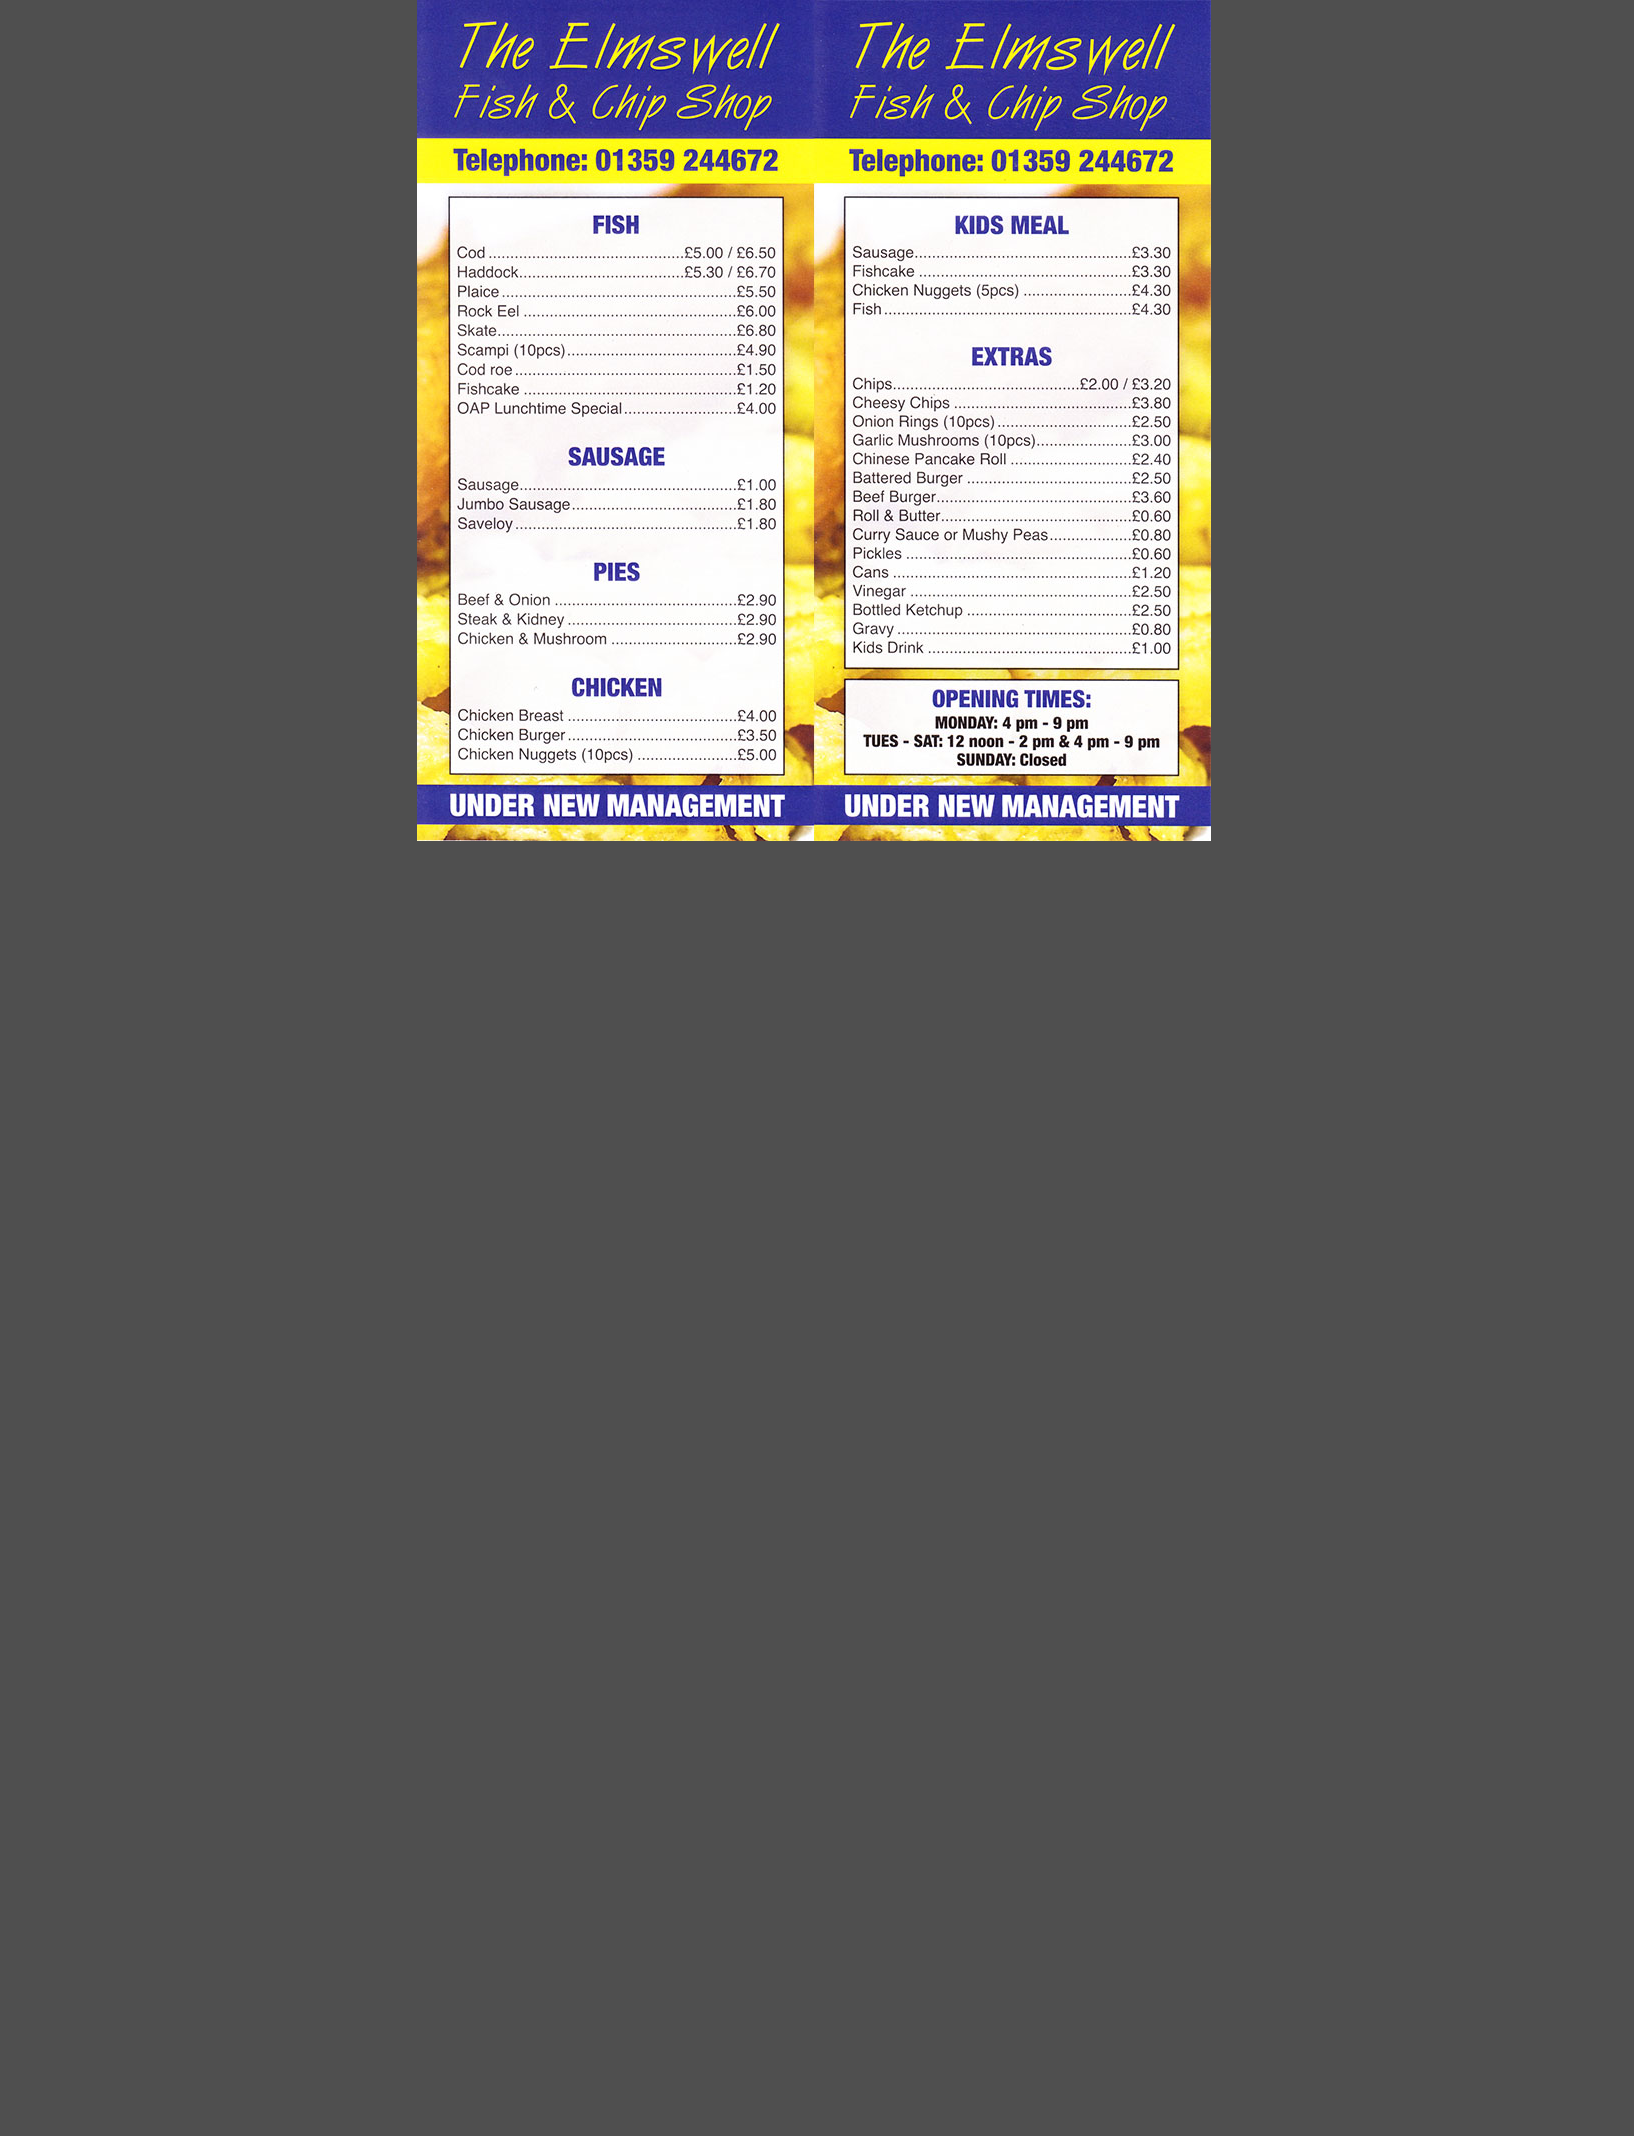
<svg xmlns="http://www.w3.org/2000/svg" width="1634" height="2136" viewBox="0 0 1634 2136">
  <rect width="100%" height="100%" fill="#4f4f4f"/>
  <image x="417" y="0" width="794" height="841" href="img/1.png"/>
</svg>
